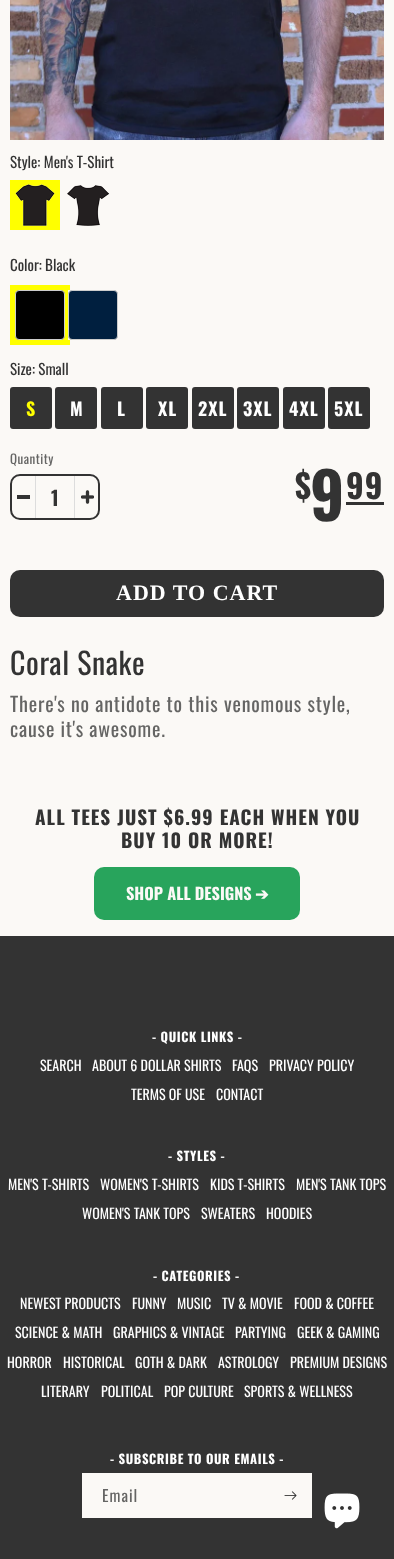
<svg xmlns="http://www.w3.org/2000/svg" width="394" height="1559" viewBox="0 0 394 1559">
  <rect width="100%" height="100%" fill="#fbf9f6"/>
  <image x="10" y="0" width="374" height="140" href="img/1.png"/>
  <path d="M10 180h50v50H10z" fill="#ff0"/>
  <image x="15" y="184" width="40" height="42" href="img/2.png"/>
  <image x="67" y="185" width="43" height="41" href="img/3.png"/>
  <path d="M10 285h60v60H10z" fill="#ff0"/>
  <rect x="15.5" y="290.5" width="49" height="49" rx="3.5" fill="#000" stroke="#ccc"/>
  <path d="M68 290h2v50H68z" fill="#fbf9f6"/>
  <rect x="68.5" y="290.5" width="49" height="49" rx="3.5" fill="#001f3f" stroke="#ccc"/>
  <rect x="10" y="387" width="42" height="42" rx="3" fill="#333"/>
  <rect x="55" y="387" width="42" height="42" rx="3" fill="#333"/>
  <rect x="101" y="387" width="42" height="42" rx="3" fill="#333"/>
  <rect x="146" y="387" width="42" height="42" rx="3" fill="#333"/>
  <rect x="192" y="387" width="42" height="42" rx="3" fill="#333"/>
  <rect x="237" y="387" width="42" height="42" rx="3" fill="#333"/>
  <rect x="283" y="387" width="42" height="42" rx="3" fill="#333"/>
  <rect x="328" y="387" width="42" height="42" rx="3" fill="#333"/>
  <rect x="11" y="475" width="88" height="44" rx="9" fill="none" stroke="#333" stroke-width="2"/>
  <path d="M17 495h13v4H17z" fill="#333"/>
  <path d="M74 476h1v42H74z" fill="#ddd"/>
  <path d="M35 476h1v42H35z" fill="#ddd"/>
  <image x="81" y="490" width="13" height="14" href="img/4.png"/>
  <path d="M346 502h38v3H346z" fill="#333"/>
  <rect x="10" y="570" width="374" height="47" rx="10" fill="#333"/>
  <rect x="94" y="867" width="206" height="53" rx="10" fill="#28a45c"/>
  <path d="M0 936h394v623H0z" fill="#333"/>
  <path d="M82 1473h230v45H82z" fill="#fbf9f6"/>
  <image x="284" y="1491" width="13" height="9" href="img/5.png"/>
  <image x="324" y="1493" width="36" height="36" href="img/6.png"/>
  <g font-family="Oswald" font-size="15" fill="#333">
    <text x="10" y="168">Style: Men's T-Shirt</text>
    <text x="10" y="271">Color: Black</text>
    <text x="10" y="375">Size: Small</text>
  </g>
  <text x="26" y="416" font-family="Oswald" font-size="18" font-weight="bold" letter-spacing="1" fill="#ff0">S</text>
  <g font-family="Oswald" font-size="18" font-weight="bold" letter-spacing="1" fill="#fff">
    <text x="70" y="416">M</text>
    <text x="117" y="416">L</text>
    <text x="158" y="416">XL</text>
    <text x="198" y="416">2XL</text>
    <text x="243" y="416">3XL</text>
    <text x="289" y="416">4XL</text>
    <text x="334" y="416">5XL</text>
  </g>
  <text x="10" y="464" font-family="Oswald" font-size="13" letter-spacing="0.5" fill="#656564">Quantity</text>
  <text x="51" y="506" font-family="Oswald" font-size="20" font-weight="bold" fill="#333">1</text>
  <text x="295" y="499" font-family="Oswald" font-size="33" font-weight="bold" letter-spacing="1" fill="#333">$</text>
  <text x="310" y="521" font-family="Oswald" font-size="64" font-weight="bold" letter-spacing="1" fill="#333">9</text>
  <text x="346" y="499" font-family="Oswald" font-size="33" font-weight="bold" letter-spacing="1" fill="#333">99</text>
  <text x="116" y="600" font-family="Liberation Serif" font-size="22" font-weight="bold" letter-spacing="1" fill="#fff">ADD TO CART</text>
  <text x="10" y="675" font-family="Oswald" font-size="30" letter-spacing="0.6" fill="#333">Coral Snake</text>
  <g font-family="Oswald" font-size="20" letter-spacing="0.8" fill="#656564">
    <text x="10" y="712">There's no antidote to this venomous style,</text>
    <text x="10" y="737">cause it's awesome.</text>
  </g>
  <g font-family="Oswald" font-size="19.25" font-weight="bold" letter-spacing="1" fill="#333">
    <text x="35" y="825">ALL TEES JUST $6.99 EACH WHEN YOU</text>
    <text x="121" y="848">BUY 10 OR MORE!</text>
  </g>
  <text x="126" y="900" font-family="Oswald" font-size="16.25" font-weight="bold" fill="#fbf9f6">SHOP ALL DESIGNS</text>
  <text x="255" y="900" font-family="DejaVu Sans" font-size="16.25" font-weight="bold" fill="#fbf9f6">➔</text>
  <text x="152" y="1042" font-family="Oswald" font-size="12.75" font-weight="bold" letter-spacing="0.6" fill="#fff">- QUICK LINKS -</text>
  <g font-family="Oswald" font-size="14" fill="#fff">
    <text x="40" y="1071">SEARCH</text>
    <text x="92" y="1071">ABOUT 6 DOLLAR SHIRTS</text>
    <text x="232" y="1071">FAQS</text>
    <text x="269" y="1071">PRIVACY POLICY</text>
    <text x="131" y="1100">TERMS OF USE</text>
    <text x="216" y="1100">CONTACT</text>
  </g>
  <text x="168" y="1161" font-family="Oswald" font-size="12.75" font-weight="bold" letter-spacing="0.6" fill="#fff">- STYLES -</text>
  <g font-family="Oswald" font-size="14" fill="#fff">
    <text x="8" y="1190">MEN'S T-SHIRTS</text>
    <text x="100" y="1190">WOMEN'S T-SHIRTS</text>
    <text x="210" y="1190">KIDS T-SHIRTS</text>
    <text x="296" y="1190">MEN'S TANK TOPS</text>
    <text x="82" y="1219">WOMEN'S TANK TOPS</text>
    <text x="201" y="1219">SWEATERS</text>
    <text x="266" y="1219">HOODIES</text>
  </g>
  <text x="153" y="1281" font-family="Oswald" font-size="12.75" font-weight="bold" letter-spacing="0.6" fill="#fff">- CATEGORIES -</text>
  <g font-family="Oswald" font-size="14" fill="#fff">
    <text x="20" y="1309">NEWEST PRODUCTS</text>
    <text x="132" y="1309">FUNNY</text>
    <text x="177" y="1309">MUSIC</text>
    <text x="222" y="1309">TV &amp; MOVIE</text>
    <text x="294" y="1309">FOOD &amp; COFFEE</text>
    <text x="15" y="1338">SCIENCE &amp; MATH</text>
    <text x="113" y="1338">GRAPHICS &amp; VINTAGE</text>
    <text x="235" y="1338">PARTYING</text>
    <text x="297" y="1338">GEEK &amp; GAMING</text>
    <text x="7" y="1368">HORROR</text>
    <text x="63" y="1368">HISTORICAL</text>
    <text x="135" y="1368">GOTH &amp; DARK</text>
    <text x="218" y="1368">ASTROLOGY</text>
    <text x="290" y="1368">PREMIUM DESIGNS</text>
    <text x="41" y="1397">LITERARY</text>
    <text x="101" y="1397">POLITICAL</text>
    <text x="164" y="1397">POP CULTURE</text>
    <text x="244" y="1397">SPORTS &amp; WELLNESS</text>
  </g>
  <text x="110" y="1464" font-family="Oswald" font-size="12.75" font-weight="bold" letter-spacing="0.6" fill="#fff">- SUBSCRIBE TO OUR EMAILS -</text>
  <text x="102" y="1502" font-family="Oswald" font-size="16" letter-spacing="1" fill="#656564">Email</text>
</svg>
